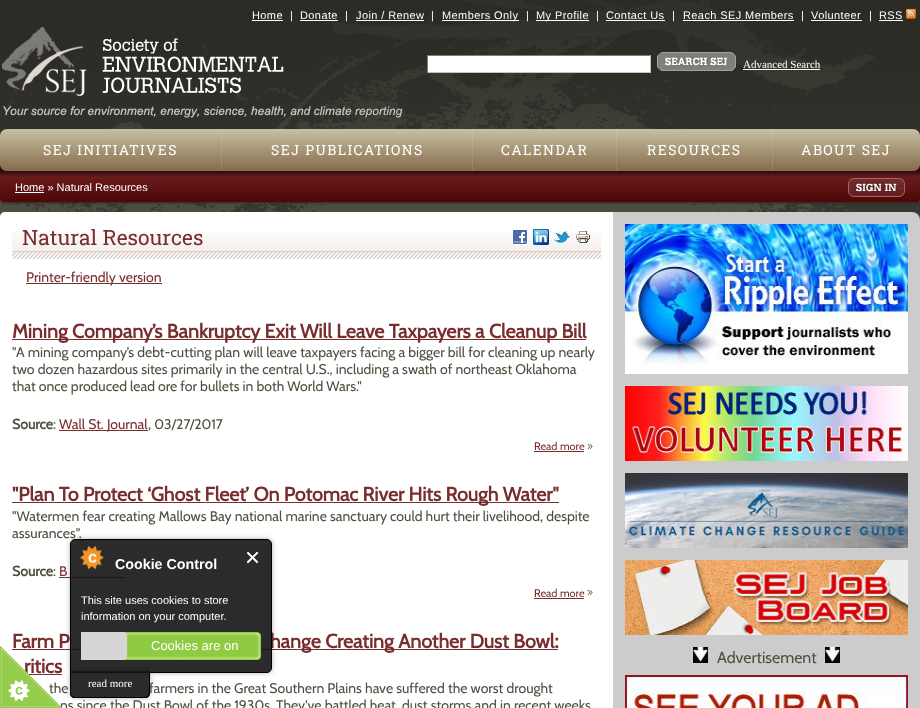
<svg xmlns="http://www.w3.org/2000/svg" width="920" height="708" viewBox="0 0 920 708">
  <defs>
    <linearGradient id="g1" gradientUnits="userSpaceOnUse" x1="111" y1="129" x2="111" y2="171"><stop offset="0" stop-color="#c8bfa2"/><stop offset="1" stop-color="#856c4c"/></linearGradient>
    <linearGradient id="g2" gradientUnits="userSpaceOnUse" x1="347" y1="129" x2="347" y2="171"><stop offset="0" stop-color="#c8bfa2"/><stop offset="1" stop-color="#856c4c"/></linearGradient>
    <linearGradient id="g3" gradientUnits="userSpaceOnUse" x1="545" y1="129" x2="545" y2="171"><stop offset="0" stop-color="#c8bfa2"/><stop offset="1" stop-color="#856c4c"/></linearGradient>
    <linearGradient id="g4" gradientUnits="userSpaceOnUse" x1="695" y1="129" x2="695" y2="171"><stop offset="0" stop-color="#c8bfa2"/><stop offset="1" stop-color="#856c4c"/></linearGradient>
    <linearGradient id="g5" gradientUnits="userSpaceOnUse" x1="847" y1="129" x2="847" y2="171"><stop offset="0" stop-color="#c8bfa2"/><stop offset="1" stop-color="#856c4c"/></linearGradient>
    <linearGradient id="g6" gradientUnits="userSpaceOnUse" x1="460" y1="171" x2="460" y2="202"><stop offset="0" stop-color="#2f0d0d"/><stop offset="0.2" stop-color="#6a1b1c"/><stop offset="1" stop-color="#4e0606"/></linearGradient>
    <clipPath id="clip1"><path d="M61 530H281V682H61ZM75 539H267C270 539 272 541 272 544V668C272 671 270 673 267 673H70V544C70 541 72 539 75 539Z" clip-rule="evenodd"/></clipPath>
    <clipPath id="clip2"><path d="M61 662H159V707H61ZM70 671H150V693C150 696 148 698 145 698H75C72 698 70 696 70 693Z" clip-rule="evenodd"/></clipPath>
  </defs>
  <rect width="100%" height="100%" fill="#fff"/>
  <image x="0" y="0" width="920" height="220" href="img/1.png"/>
  <image x="2" y="27" width="282" height="69" href="img/2.png"/>
  <image x="3" y="106" width="400" height="12" href="img/3.png"/>
  <path d="M252 20h31v1H252z" fill="#fff"/>
  <path d="M300 20h38v1H300z" fill="#fff"/>
  <path d="M356 20h68v1H356z" fill="#fff"/>
  <path d="M442 20h77v1H442z" fill="#fff"/>
  <path d="M536 20h53v1H536z" fill="#fff"/>
  <path d="M606 20h59v1H606z" fill="#fff"/>
  <path d="M683 20h111v1H683z" fill="#fff"/>
  <path d="M811 20h51v1H811z" fill="#fff"/>
  <path d="M879 20h24v1H879z" fill="#fff"/>
  <image x="906" y="9" width="10" height="10" href="img/4.png"/>
  <path d="M428 56h222v16H428z" fill="#fff"/>
  <path d="M427 55h224v1H427z" fill="#7d7d7d"/>
  <path d="M650 55h1v18H650z" fill="#c4c4c4"/>
  <path d="M427 72h224v1H427z" fill="#c4c4c4"/>
  <path d="M427 55h1v18H427z" fill="#7d7d7d"/>
  <image x="657" y="52" width="79" height="19" href="img/5.png"/>
  <path d="M743 69h77v1H743z" fill="#fff"/>
  <rect x="1" y="174" width="918" height="29" rx="3" fill="#2c2b26" filter="blur(1px)"/>
  <path d="M8 129H912C916.5 129 920 132.5 920 137V171H0V137C0 132.5 3.5 129 8 129Z" fill="#2f0d0d"/>
  <path d="M7 129H222V171H7C3 171 0 168 0 164V136C0 132 3 129 7 129Z" fill="url(#g1)"/>
  <path d="M221 129h1v42H221z" fill="#ffffff1a"/>
  <path d="M222 129h251v42H222z" fill="url(#g2)"/>
  <path d="M472 129h1v42H472z" fill="#ffffff1a"/>
  <path d="M473 129h144v42H473z" fill="url(#g3)"/>
  <path d="M616 129h1v42H616z" fill="#ffffff1a"/>
  <path d="M617 129h156v42H617z" fill="url(#g4)"/>
  <path d="M772 129h1v42H772z" fill="#ffffff1a"/>
  <path d="M773 129H913C917 129 920 132 920 136V164C920 168 917 171 913 171H773Z" fill="url(#g5)"/>
  <path d="M0 171H920V198C920 200 918 202 916 202H4C2 202 0 200 0 198Z" fill="url(#g6)"/>
  <path d="M15 192h29v1H15z" fill="#fff"/>
  <image x="848" y="178" width="57" height="19" href="img/6.png"/>
  <rect y="212" width="920" height="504" rx="8" fill="#ccc"/>
  <path d="M5 212H613V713H5C2 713 0 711 0 708V217C0 214 2 212 5 212Z" fill="#fff"/>
  <image x="12" y="231" width="589" height="28" href="img/7.png"/>
  <image x="512" y="230" width="16" height="15" href="img/8.png"/>
  <image x="533" y="229" width="16" height="16" href="img/9.png"/>
  <image x="554" y="231" width="16" height="13" href="img/10.png"/>
  <image x="576" y="231" width="14" height="12" href="img/11.png"/>
  <path d="M26 283h136v1H26z" fill="#782d2e"/>
  <path d="M12 339h574v1H12z" fill="#782d2e"/>
  <path d="M59 430h89v1H59z" fill="#782d2e"/>
  <image x="587" y="444" width="6" height="5" href="img/12.png"/>
  <path d="M534 451h50v1H534z" fill="#782d2e"/>
  <path d="M12 502h547v1H12z" fill="#782d2e"/>
  <path d="M59 577h66v1H59z" fill="#782d2e"/>
  <image x="587" y="590" width="6" height="5" href="img/12.png"/>
  <path d="M534 598h50v1H534z" fill="#782d2e"/>
  <path d="M12 649h546v1H12z" fill="#782d2e"/>
  <path d="M29 674h33v1H29z" fill="#782d2e"/>
  <image x="625" y="224" width="283" height="150" href="img/13.png"/>
  <image x="625" y="386" width="283" height="75" href="img/14.png"/>
  <image x="625" y="473" width="283" height="75" href="img/15.png"/>
  <image x="625" y="560" width="283" height="75" href="img/16.png"/>
  <image x="693" y="647" width="15" height="16" href="img/17.png"/>
  <image x="825" y="647" width="15" height="16" href="img/17.png"/>
  <image x="625" y="675" width="283" height="33" href="img/18.png"/>
  <g font-family="Liberation Sans" font-size="11" letter-spacing="0.4" fill="#fff">
    <text x="252" y="19">Home</text>
    <text x="290" y="19">|</text>
    <text x="300" y="19">Donate</text>
    <text x="345" y="19">|</text>
    <text x="356" y="19">Join / Renew</text>
    <text x="431" y="19">|</text>
    <text x="442" y="19">Members Only</text>
    <text x="526" y="19">|</text>
    <text x="536" y="19">My Profile</text>
    <text x="596" y="19">|</text>
    <text x="606" y="19">Contact Us</text>
    <text x="672" y="19">|</text>
    <text x="683" y="19">Reach SEJ Members</text>
    <text x="801" y="19">|</text>
    <text x="811" y="19">Volunteer</text>
    <text x="869" y="19">|</text>
    <text x="879" y="19">RSS</text>
  </g>
  <text x="743" y="68" font-family="Liberation Serif" font-size="11" fill="#fff">Advanced Search</text>
  <g font-family="Roboto Slab" font-size="14" letter-spacing="1.4" fill="#fff">
    <text x="43" y="155">SEJ INITIATIVES</text>
    <text x="271" y="155">SEJ PUBLICATIONS</text>
    <text x="501" y="155">CALENDAR</text>
    <text x="647" y="155">RESOURCES</text>
    <text x="801" y="155">ABOUT SEJ</text>
  </g>
  <text x="15" y="191" font-family="Liberation Sans" font-size="11" fill="#fff">Home » Natural Resources</text>
  <text x="22" y="245" font-family="Roboto Slab" font-size="21" fill="#782d2e">Natural Resources</text>
  <text x="26" y="282" font-family="Cabin" font-size="14" fill="#782d2e">Printer-friendly version</text>
  <text x="12" y="338" font-family="Cabin" font-size="19.6" font-weight="bold" fill="#782d2e">Mining Company’s Bankruptcy Exit Will Leave Taxpayers a Cleanup Bill</text>
  <g font-family="Cabin" font-size="14" fill="#4f4f42">
    <text x="12" y="357">"A mining company’s debt-cutting plan will leave taxpayers facing a bigger bill for cleaning up nearly</text>
    <text x="12" y="374">two dozen hazardous sites primarily in the central U.S., including a swath of northeast Oklahoma</text>
    <text x="12" y="391">that once produced lead ore for bullets in both World Wars."</text>
  </g>
  <text x="12" y="429" font-family="Cabin" font-size="14" font-weight="bold" fill="#4f4f42">Source</text>
  <text x="53" y="429" font-family="Cabin" font-size="14" fill="#4f4f42">:</text>
  <text x="59" y="429" font-family="Cabin" font-size="14" fill="#782d2e">Wall St. Journal</text>
  <text x="148" y="429" font-family="Cabin" font-size="14" fill="#4f4f42">, 03/27/2017</text>
  <text x="534" y="450" font-family="Cabin" font-size="11" fill="#782d2e">Read more</text>
  <text x="12" y="501" font-family="Cabin" font-size="19.6" font-weight="bold" fill="#782d2e">"Plan To Protect ‘Ghost Fleet’ On Potomac River Hits Rough Water"</text>
  <g font-family="Cabin" font-size="14" fill="#4f4f42">
    <text x="12" y="521">"Watermen fear creating Mallows Bay national marine sanctuary could hurt their livelihood, despite</text>
    <text x="12" y="538">assurances".</text>
  </g>
  <text x="12" y="576" font-family="Cabin" font-size="14" font-weight="bold" fill="#4f4f42">Source</text>
  <text x="53" y="576" font-family="Cabin" font-size="14" fill="#4f4f42">:</text>
  <text x="59" y="576" font-family="Cabin" font-size="14" fill="#782d2e">B</text>
  <text x="534" y="597" font-family="Cabin" font-size="11" fill="#782d2e">Read more</text>
  <g font-family="Cabin" font-size="19.6" font-weight="bold" fill="#782d2e">
    <text x="12" y="648">Farm P</text>
    <text x="270" y="648">hange Creating Another Dust Bowl:</text>
    <text x="24" y="673">ritics</text>
  </g>
  <g font-family="Cabin" font-size="14" fill="#4f4f42">
    <text x="49" y="693">the</text>
    <text x="149" y="693">farmers in the Great Southern Plains have suffered the worst drought</text>
    <text x="60" y="710">ns since the Dust Bowl of the 1930s. They've battled heat, dust storms and in recent weeks</text>
  </g>
  <text x="717" y="663" font-family="Cabin" font-size="16" fill="#4f4f42">Advertisement</text>
  <image x="0" y="646" width="62" height="62" href="img/19.png"/>
  <g clip-path="url(#clip1)">
    <rect x="70" y="539" width="202" height="134" rx="5" fill="#0000004d" filter="blur(2.5px)"/>
  </g>
  <path d="M75 539.5H267C269.5 539.5 271.5 541.5 271.5 544V668C271.5 670.5 269.5 672.5 267 672.5H70.5V544C70.5 541.5 72.5 539.5 75 539.5Z" fill="#141414e6" stroke="#000"/>
  <image x="80" y="546" width="24" height="41" href="img/20.png"/>
  <text x="115" y="569" font-family="Liberation Sans" font-size="14.25" font-weight="bold" fill="#fff">Cookie Control</text>
  <image x="247" y="551" width="12" height="13" href="img/21.png"/>
  <g font-family="Liberation Sans" font-size="11" fill="#fff">
    <text x="81" y="604">This site uses cookies to store</text>
    <text x="81" y="620">information on your computer.</text>
  </g>
  <image x="81" y="632" width="180" height="28" href="img/22.png"/>
  <text x="151" y="650" font-family="Liberation Sans" font-size="13" fill="#fff">Cookies are on</text>
  <g clip-path="url(#clip2)">
    <rect x="70" y="671" width="80" height="27" rx="5" fill="#0000004d" filter="blur(2.5px)"/>
  </g>
  <path d="M70 671H150V693C150 696 148 698 145 698H75C72 698 70 696 70 693Z" fill="#141414e6"/>
  <path d="M70 671H150V693C150 696 148 698 145 698H75C72 698 70 696 70 693ZM71 671H149V693C149 695 147 697 145 697H75C73 697 71 695 71 693Z" fill="#000" fill-rule="evenodd"/>
  <text x="88" y="687" font-family="Liberation Serif" font-size="11" fill="#fff">read more</text>
</svg>
